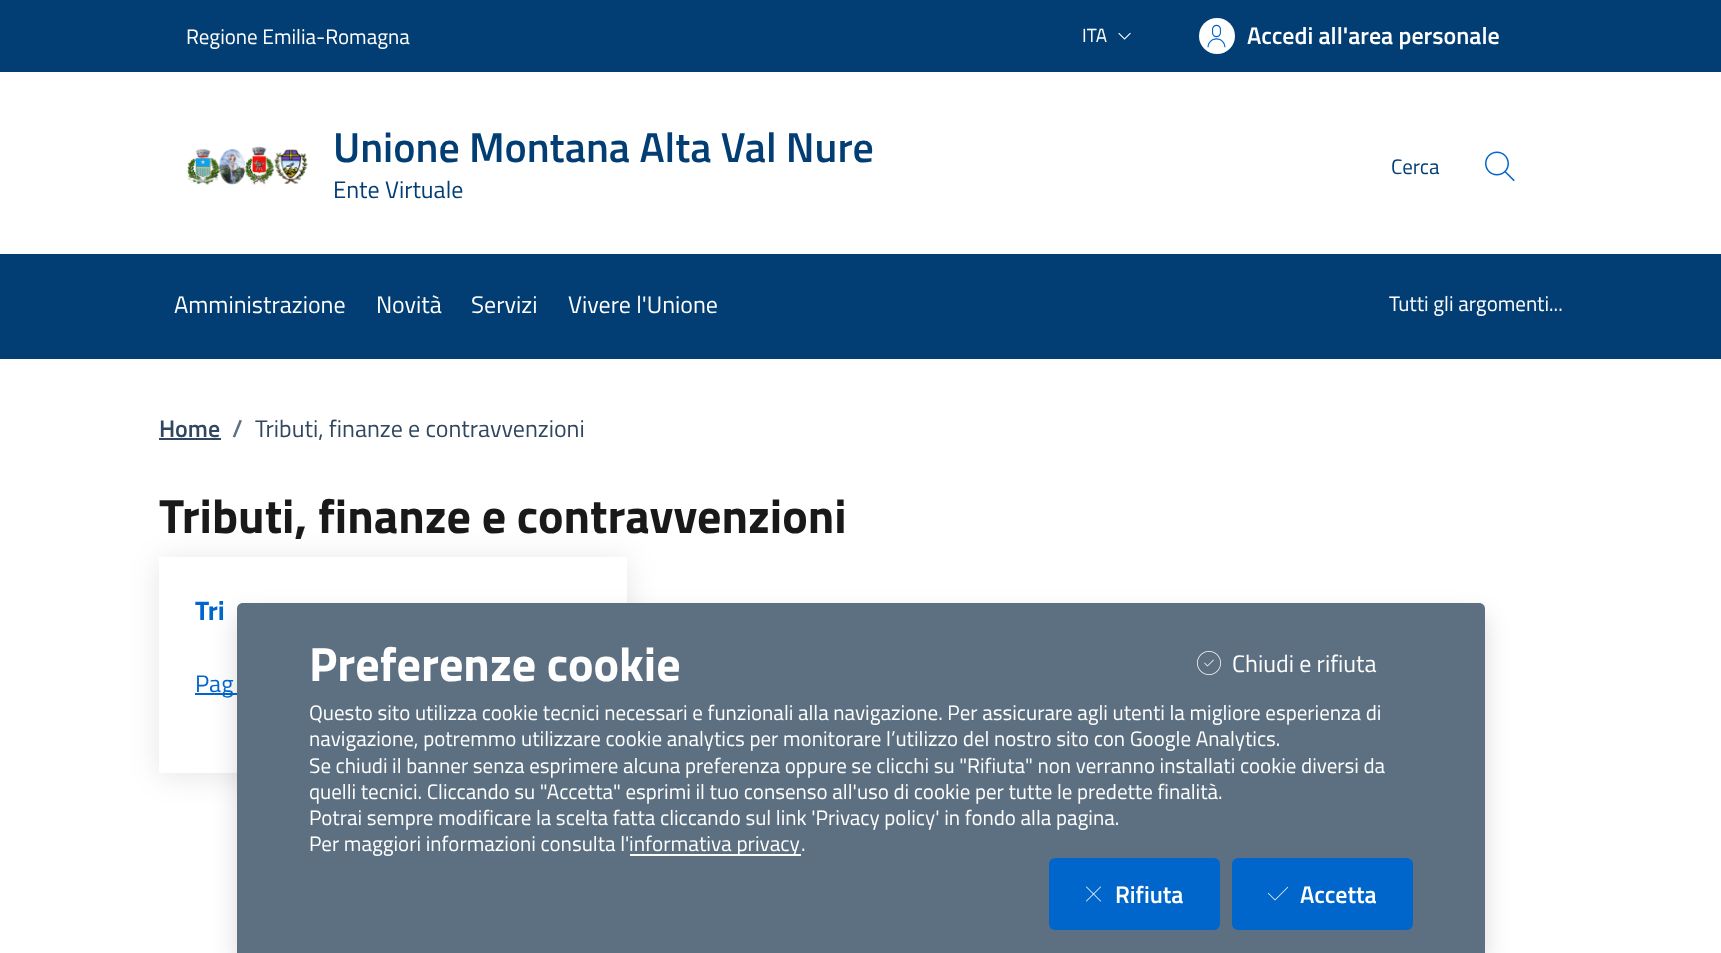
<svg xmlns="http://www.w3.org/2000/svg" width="1721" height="953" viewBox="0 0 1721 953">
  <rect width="100%" height="100%" fill="#fff"/>
  <path d="M0 0h1721v72H0z" fill="#023e73"/>
  <image x="1118" y="32" width="13" height="8" href="img/1.png"/>
  <circle cx="1217" cy="36" r="18" fill="#fff"/>
  <image x="1207" y="24" width="19" height="24" href="img/2.png"/>
  <image x="187" y="146" width="121" height="39" href="img/3.png"/>
  <image x="1485" y="151" width="30" height="31" href="img/4.png"/>
  <path d="M0 254h1721v105H0z" fill="#023e73"/>
  <path d="M159 438h62v2H159z" fill="#30475f"/>
  <path d="M159 560h468v216H159z" fill="#0000001a" filter="blur(15px)"/>
  <path d="M159 557h468v216H159z" fill="#fff"/>
  <path d="M195 693h42v2H195z" fill="#06c"/>
  <rect x="237" y="615" width="1248" height="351" rx="6" fill="#00000026" filter="blur(12px)"/>
  <path d="M243 603H1479C1482.5 603 1485 605.5 1485 609V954H237V609C237 605.5 239.5 603 243 603Z" fill="#5c7082"/>
  <image x="1197" y="651" width="24" height="24" href="img/5.png"/>
  <path d="M630 854h171v2H630z" fill="#fff"/>
  <rect x="1049" y="858" width="171" height="72" rx="6" fill="#06c"/>
  <image x="1086" y="886" width="15" height="16" href="img/6.png"/>
  <rect x="1232" y="858" width="181" height="72" rx="6" fill="#06c"/>
  <image x="1267" y="886" width="22" height="15" href="img/7.png"/>
  <text x="186" y="44" font-family="Titillium Web" font-size="21" fill="#fff">Regione Emilia-Romagna</text>
  <text x="1082" y="42" font-family="Titillium Web" font-size="19" fill="#fff">ITA</text>
  <text x="1247" y="44" font-family="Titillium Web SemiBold" font-size="24" font-weight="600" fill="#fff">Accedi all'area personale</text>
  <text x="333" y="162" font-family="Titillium Web SemiBold" font-size="42" font-weight="600" fill="#023e73">Unione Montana Alta Val Nure</text>
  <text x="333" y="198" font-family="Titillium Web" font-size="24" fill="#023e73">Ente Virtuale</text>
  <text x="1391" y="174" font-family="Titillium Web" font-size="21" fill="#023e73">Cerca</text>
  <g font-family="Titillium Web" font-size="24" fill="#fff">
    <text x="174" y="313">Amministrazione</text>
    <text x="376" y="313">Novità</text>
    <text x="471" y="313">Servizi</text>
    <text x="568" y="313">Vivere l'Unione</text>
  </g>
  <text x="1389" y="311" font-family="Titillium Web" font-size="21" fill="#fff">Tutti gli argomenti...</text>
  <text x="159" y="437" font-family="Titillium Web SemiBold" font-size="24" font-weight="600" fill="#30475f">Home</text>
  <text x="232" y="437" font-family="Titillium Web SemiBold" font-size="24" font-weight="600" fill="#5d7083">/</text>
  <text x="255" y="437" font-family="Titillium Web" font-size="24" fill="#30475f">Tributi, finanze e contravvenzioni</text>
  <text x="159" y="533" font-family="Titillium Web" font-size="48" font-weight="bold" fill="#191919">Tributi, finanze e contravvenzioni</text>
  <text x="195" y="620" font-family="Titillium Web" font-size="27" font-weight="bold" fill="#06c">Tri</text>
  <text x="195" y="692" font-family="Titillium Web" font-size="24" fill="#06c">Pag</text>
  <text x="309" y="681" font-family="Titillium Web" font-size="48" font-weight="bold" fill="#fff">Preferenze cookie</text>
  <text x="1232" y="672" font-family="Titillium Web" font-size="24" fill="#fff">Chiudi e rifiuta</text>
  <g font-family="Titillium Web" font-size="21" fill="#fff">
    <text x="309" y="720">Questo sito utilizza cookie tecnici necessari e funzionali alla navigazione. Per assicurare agli utenti la migliore esperienza di</text>
    <text x="309" y="746">navigazione, potremmo utilizzare cookie analytics per monitorare l’utilizzo del nostro sito con Google Analytics.</text>
    <text x="309" y="773">Se chiudi il banner senza esprimere alcuna preferenza oppure se clicchi su "Rifiuta" non verranno installati cookie diversi da</text>
    <text x="309" y="799">quelli tecnici. Cliccando su "Accetta" esprimi il tuo consenso all'uso di cookie per tutte le predette finalità.</text>
    <text x="309" y="825">Potrai sempre modificare la scelta fatta cliccando sul link 'Privacy policy' in fondo alla pagina.</text>
    <text x="309" y="851">Per maggiori informazioni consulta l'</text>
  </g>
  <text x="629" y="851" font-family="Titillium Web" font-size="21.25" fill="#fff">informativa privacy</text>
  <text x="801" y="851" font-family="Titillium Web" font-size="21" fill="#fff">.</text>
  <g font-family="Titillium Web SemiBold" font-size="24" font-weight="600" fill="#fff">
    <text x="1115" y="903">Rifiuta</text>
    <text x="1300" y="903">Accetta</text>
  </g>
</svg>
